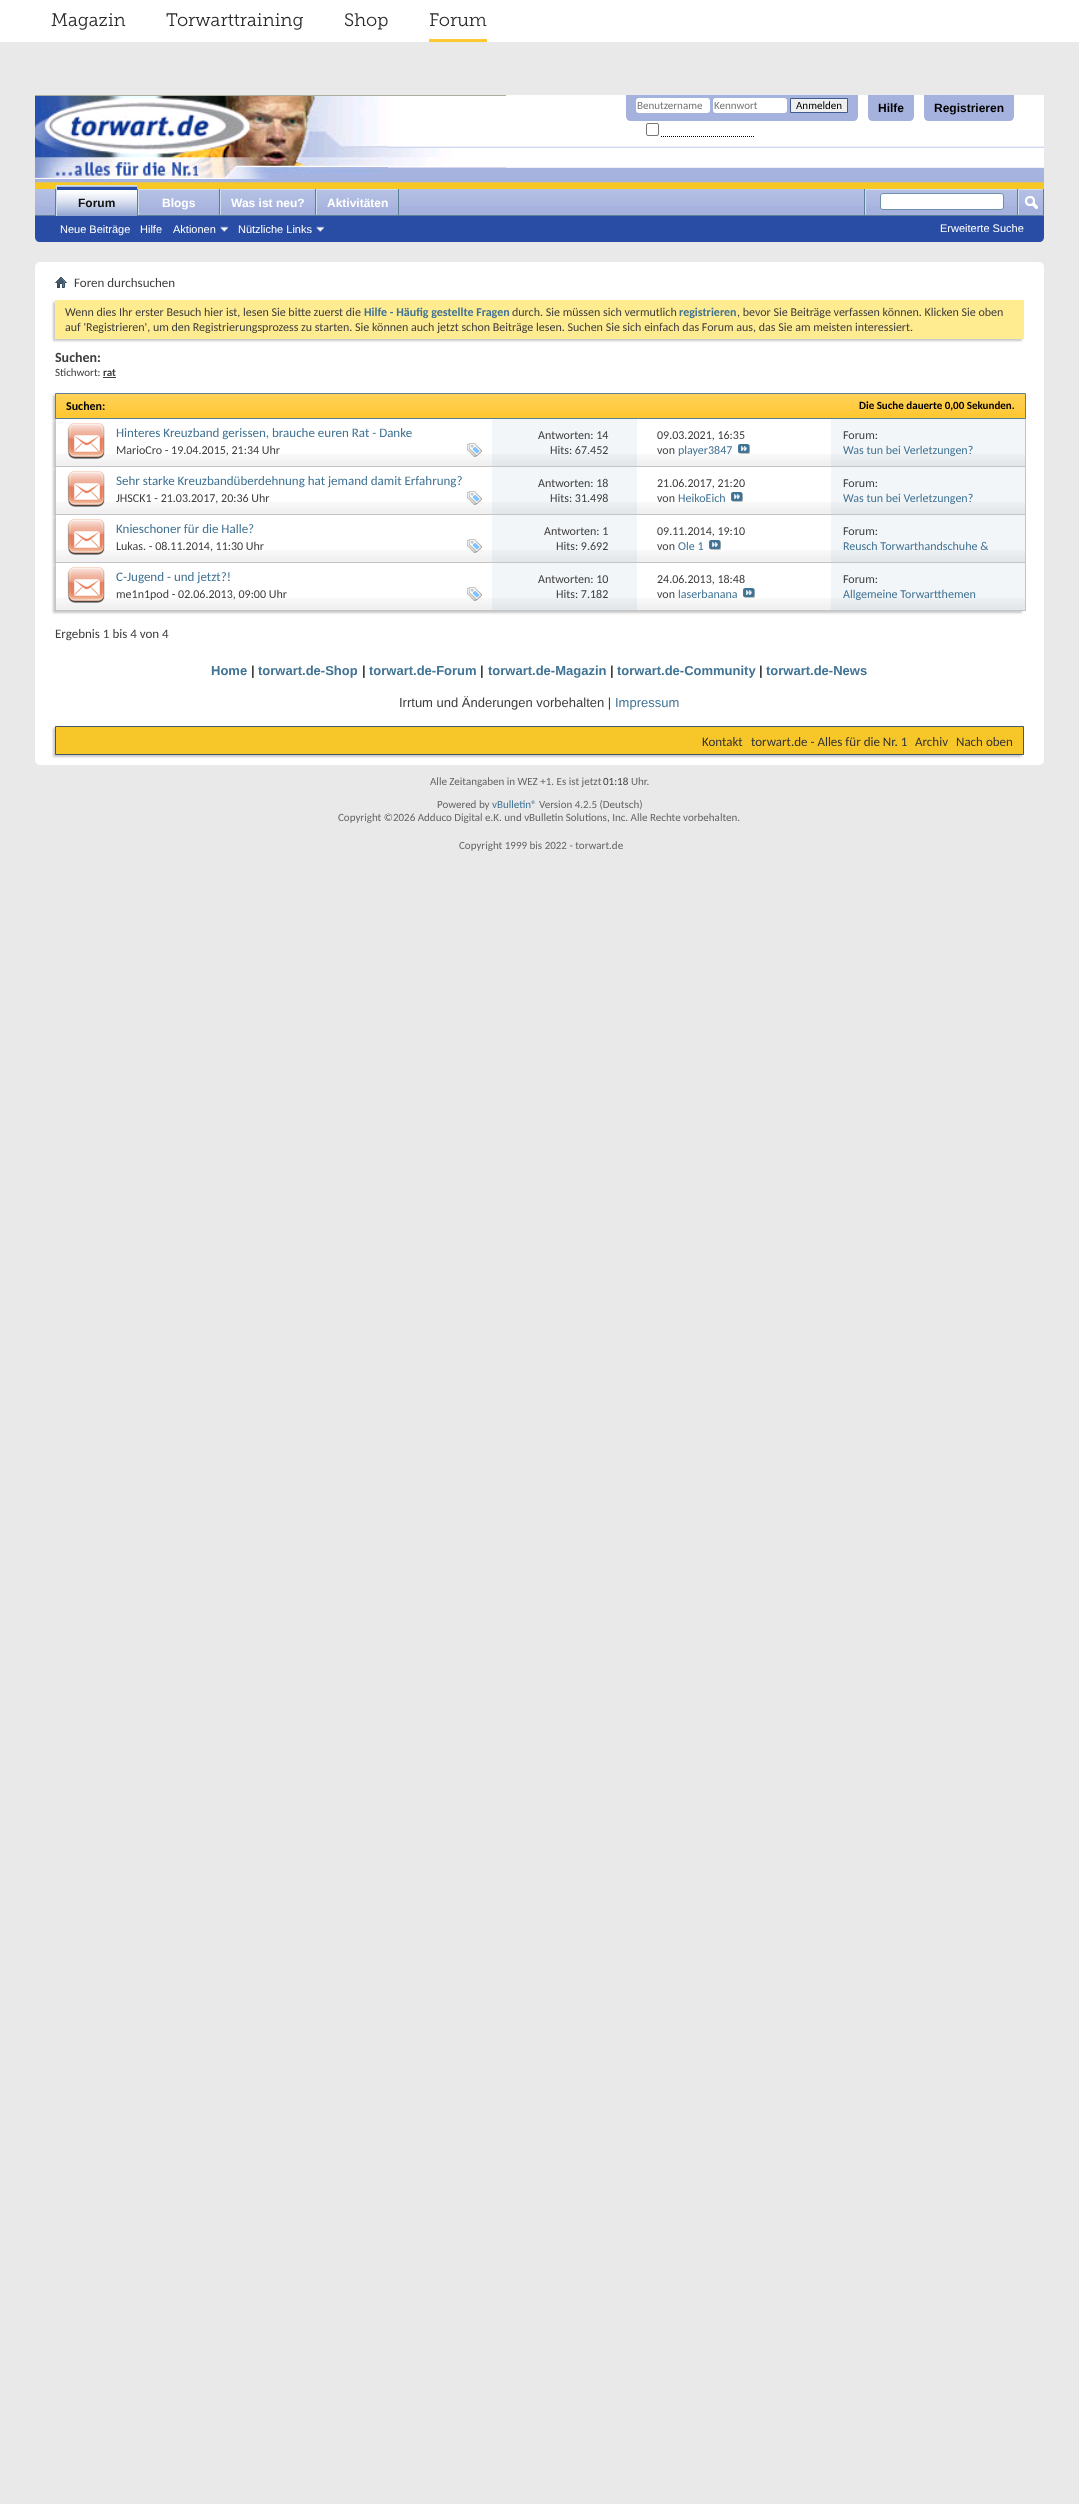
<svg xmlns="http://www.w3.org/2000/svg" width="1079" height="2504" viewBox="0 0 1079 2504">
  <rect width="100%" height="100%" fill="#e9e9e9"/>
  <path d="M0 0h1079v42H0z" fill="#fff"/>
  <path d="M429 39h58v3H429z" fill="#ffc82e"/>
  <image x="35" y="95" width="1009" height="94" href="img/1.png"/>
  <image x="35" y="95" width="471" height="84" href="img/2.png"/>
  <path d="M626 95H858V116C858 119 856 121 853 121H631C628 121 626 119 626 116Z" fill="#a5b2de"/>
  <rect x="636" y="98" width="74" height="15" rx="3" fill="#fff"/>
  <rect x="713" y="98" width="74" height="15" rx="3" fill="#fff"/>
  <path d="M790.5 98.5h57v14H790.5z" fill="#efefef" stroke="#415d8d"/>
  <rect x="646.5" y="123.5" width="12" height="12" rx="1.5" fill="none" stroke="#767676"/>
  <path d="M661 136.5H755" fill="none" stroke="#000" stroke-dasharray="1 1"/>
  <path d="M868 95H914V116C914 119 912 121 909 121H873C870 121 868 119 868 116Z" fill="#a5b2de"/>
  <path d="M924 95H1014V116C1014 119 1012 121 1009 121H929C926 121 924 119 924 116Z" fill="#a5b2de"/>
  <path d="M35 189H1044V237C1044 240 1042 242 1039 242H40C37 242 35 240 35 237Z" fill="#294da5"/>
  <path d="M35 189h1008v26H35z" fill="#a5b2de"/>
  <image x="35" y="189" width="1008" height="18" href="img/3.png"/>
  <path d="M137 189h1v26H137z" fill="#5a7f97"/>
  <path d="M55 189h1v26H55z" fill="#5a7f97"/>
  <path d="M219 189h1v27H219z" fill="#5a7f97"/>
  <path d="M138 189h81v1H138z" fill="#cedfeb"/>
  <path d="M138 189h1v27H138z" fill="#cedfeb"/>
  <path d="M315 189h1v27H315z" fill="#5a7f97"/>
  <path d="M220 189h95v1H220z" fill="#cedfeb"/>
  <path d="M220 189h1v27H220z" fill="#cedfeb"/>
  <path d="M398 189h1v27H398z" fill="#5a7f97"/>
  <path d="M316 189h82v1H316z" fill="#cedfeb"/>
  <path d="M316 189h1v27H316z" fill="#cedfeb"/>
  <path d="M35 215h1009v1H35z" fill="#5a7f97"/>
  <path d="M57 186h80v30H57z" fill="#294da5"/>
  <image x="57" y="186" width="80" height="30" href="img/4.png"/>
  <path d="M56 185h81v1H56z" fill="#cedfeb"/>
  <path d="M56 185h1v31H56z" fill="#cedfeb"/>
  <path d="M139 190h80v17H139z" fill="#a5b2de"/>
  <image x="139" y="190" width="80" height="18" href="img/5.png"/>
  <path d="M221 190h94v17H221z" fill="#a5b2de"/>
  <image x="221" y="190" width="94" height="18" href="img/6.png"/>
  <path d="M317 190h81v17H317z" fill="#a5b2de"/>
  <image x="317" y="190" width="81" height="18" href="img/7.png"/>
  <image x="220" y="226" width="9" height="6" href="img/8.png"/>
  <image x="316" y="226" width="9" height="6" href="img/8.png"/>
  <path d="M864 189h1v26H864z" fill="#5a7f97"/>
  <path d="M865 189h152v1H865z" fill="#cedfeb"/>
  <path d="M865 189h1v26H865z" fill="#cedfeb"/>
  <rect x="880.5" y="193.5" width="123" height="16" rx="2.5" fill="#fff" stroke="#6b91ab"/>
  <path d="M1043 189h1v26H1043z" fill="#5a7f97"/>
  <path d="M1017 189h1v26H1017z" fill="#5a7f97"/>
  <path d="M1018 189h25v1H1018z" fill="#cedfeb"/>
  <path d="M1018 189h1v26H1018z" fill="#cedfeb"/>
  <image x="1025" y="196" width="13" height="14" href="img/9.png"/>
  <rect x="35" y="262" width="1009" height="503" rx="5" fill="#fff"/>
  <image x="55" y="277" width="12" height="11" href="img/10.png"/>
  <path d="M53 302h969v39H53z" fill="#c8c8c8" filter="blur(1px)"/>
  <path d="M55 300h969v39H55z" fill="#ffeb90"/>
  <path d="M103 377h13v1H103z" fill="#3e3e3e"/>
  <path d="M53 395h971v26H53z" fill="#c8c8c8" filter="blur(1px)"/>
  <path d="M56 394h969v24H56z" fill="#ffc731"/>
  <image x="56" y="394" width="969" height="20" href="img/11.png"/>
  <path d="M55.5 393.5h970v25H55.5z" fill="none" stroke="#5a7f97"/>
  <path d="M53 421h969v48H53z" fill="#c8c8c8" filter="blur(1px)"/>
  <path d="M56 419h775v47H56z" fill="#fff"/>
  <image x="56" y="454" width="775" height="12" href="img/12.png"/>
  <path d="M1025 419h1v48H1025z" fill="#c4c4c4"/>
  <path d="M55 466h971v1H55z" fill="#c4c4c4"/>
  <path d="M55 419h1v48H55z" fill="#c4c4c4"/>
  <image x="67" y="423" width="38" height="36" href="img/13.png"/>
  <image x="467" y="443" width="15" height="14" href="img/14.png"/>
  <path d="M492 419h145v47H492z" fill="#f2f6f8"/>
  <image x="492" y="454" width="145" height="12" href="img/15.png"/>
  <image x="738" y="444" width="12" height="10" href="img/16.png"/>
  <path d="M831 419h194v47H831z" fill="#f2f6f8"/>
  <image x="831" y="454" width="194" height="12" href="img/17.png"/>
  <path d="M53 469h969v48H53z" fill="#c8c8c8" filter="blur(1px)"/>
  <path d="M56 467h775v47H56z" fill="#fff"/>
  <image x="56" y="502" width="775" height="12" href="img/12.png"/>
  <path d="M1025 467h1v48H1025z" fill="#c4c4c4"/>
  <path d="M55 514h971v1H55z" fill="#c4c4c4"/>
  <path d="M55 467h1v48H55z" fill="#c4c4c4"/>
  <image x="67" y="471" width="38" height="36" href="img/13.png"/>
  <image x="467" y="491" width="15" height="14" href="img/14.png"/>
  <path d="M492 467h145v47H492z" fill="#f2f6f8"/>
  <image x="492" y="502" width="145" height="12" href="img/15.png"/>
  <image x="731" y="492" width="12" height="10" href="img/16.png"/>
  <path d="M831 467h194v47H831z" fill="#f2f6f8"/>
  <image x="831" y="502" width="194" height="12" href="img/17.png"/>
  <path d="M53 517h969v48H53z" fill="#c8c8c8" filter="blur(1px)"/>
  <path d="M56 515h775v47H56z" fill="#fff"/>
  <image x="56" y="550" width="775" height="12" href="img/12.png"/>
  <path d="M1025 515h1v48H1025z" fill="#c4c4c4"/>
  <path d="M55 562h971v1H55z" fill="#c4c4c4"/>
  <path d="M55 515h1v48H55z" fill="#c4c4c4"/>
  <image x="67" y="519" width="38" height="36" href="img/13.png"/>
  <image x="467" y="539" width="15" height="14" href="img/14.png"/>
  <path d="M492 515h145v47H492z" fill="#f2f6f8"/>
  <image x="492" y="550" width="145" height="12" href="img/15.png"/>
  <image x="709" y="540" width="12" height="10" href="img/16.png"/>
  <path d="M831 515h194v47H831z" fill="#f2f6f8"/>
  <image x="831" y="550" width="194" height="12" href="img/17.png"/>
  <path d="M53 565h969v48H53z" fill="#c8c8c8" filter="blur(1px)"/>
  <path d="M56 563h775v47H56z" fill="#fff"/>
  <image x="56" y="598" width="775" height="12" href="img/12.png"/>
  <path d="M1025 563h1v48H1025z" fill="#c4c4c4"/>
  <path d="M55 610h971v1H55z" fill="#c4c4c4"/>
  <path d="M55 563h1v48H55z" fill="#c4c4c4"/>
  <image x="67" y="567" width="38" height="36" href="img/13.png"/>
  <image x="467" y="587" width="15" height="14" href="img/14.png"/>
  <path d="M492 563h145v47H492z" fill="#f2f6f8"/>
  <image x="492" y="598" width="145" height="12" href="img/15.png"/>
  <image x="743" y="588" width="12" height="10" href="img/16.png"/>
  <path d="M831 563h194v47H831z" fill="#f2f6f8"/>
  <image x="831" y="598" width="194" height="12" href="img/17.png"/>
  <path d="M53 728h969v29H53z" fill="#c8c8c8" filter="blur(1px)"/>
  <path d="M55.5 726.5h968v28H55.5z" fill="#f7c729" stroke="#425769"/>
  <g font-family="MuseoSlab" font-size="18" fill="#292929">
    <text x="51" y="26">Magazin</text>
    <text x="166" y="26">Torwarttraining</text>
    <text x="344" y="26">Shop</text>
    <text x="429" y="26">Forum</text>
  </g>
  <g font-family="Carlito" font-size="11" fill="#777">
    <text x="637" y="109">Benutzername</text>
    <text x="714" y="109">Kennwort</text>
  </g>
  <text x="796" y="109" font-family="Carlito" font-size="11" fill="#000">Anmelden</text>
  <g font-family="Liberation Sans" font-size="12" font-weight="bold" fill="#000">
    <text x="878" y="112">Hilfe</text>
    <text x="934" y="112">Registrieren</text>
  </g>
  <text x="78" y="207" font-family="Liberation Sans" font-size="12" font-weight="bold" fill="#111">Forum</text>
  <g font-family="Liberation Sans" font-size="12" font-weight="bold" fill="#fff">
    <text x="162" y="207">Blogs</text>
    <text x="231" y="207">Was ist neu?</text>
    <text x="327" y="207">Aktivitäten</text>
  </g>
  <g font-family="Liberation Sans" font-size="11" fill="#fff">
    <text x="60" y="233">Neue Beiträge</text>
    <text x="140" y="233">Hilfe</text>
    <text x="173" y="233">Aktionen</text>
    <text x="238" y="233">Nützliche Links</text>
    <text x="940" y="232">Erweiterte Suche</text>
  </g>
  <text x="74" y="287" font-family="Carlito" font-size="13" fill="#3e3e3e">Foren durchsuchen</text>
  <text x="65" y="316" font-family="Carlito" font-size="12" fill="#3e3e3e">Wenn dies Ihr erster Besuch hier ist, lesen Sie bitte zuerst die</text>
  <text x="364" y="316" font-family="Carlito" font-size="12" font-weight="bold" fill="#417394">Hilfe - Häufig gestellte Fragen</text>
  <text x="512" y="316" font-family="Carlito" font-size="12" fill="#3e3e3e">durch. Sie müssen sich vermutlich</text>
  <text x="679" y="316" font-family="Carlito" font-size="12" font-weight="bold" fill="#417394">registrieren</text>
  <g font-family="Carlito" font-size="12" fill="#3e3e3e">
    <text x="737" y="316">, bevor Sie Beiträge verfassen können. Klicken Sie oben</text>
    <text x="65" y="331">auf 'Registrieren', um den Registrierungsprozess zu starten. Sie können auch jetzt schon Beiträge lesen. Suchen Sie sich einfach das Forum aus, das Sie am meisten interessiert.</text>
  </g>
  <text x="55" y="362" font-family="Carlito" font-size="14" font-weight="bold" fill="#3e3e3e">Suchen:</text>
  <text x="55" y="376" font-family="Carlito" font-size="11" fill="#3e3e3e">Stichwort:</text>
  <text x="103" y="376" font-family="Carlito" font-size="11" font-weight="bold" fill="#3e3e3e">rat</text>
  <text x="66" y="410" font-family="Carlito" font-size="12" font-weight="bold" fill="#000">Suchen:</text>
  <text x="859" y="409" font-family="Carlito" font-size="11" font-weight="bold" fill="#000">Die Suche dauerte 0,00 Sekunden.</text>
  <text x="116" y="437" font-family="Carlito" font-size="13" fill="#417394">Hinteres Kreuzband gerissen, brauche euren Rat - Danke</text>
  <g font-family="Carlito" font-size="12" fill="#3e3e3e">
    <text x="116" y="454">MarioCro - 19.04.2015, 21:34 Uhr</text>
    <text x="538" y="439">Antworten: 14</text>
    <text x="550" y="454">Hits: 67.452</text>
    <text x="657" y="439">09.03.2021, 16:35</text>
    <text x="657" y="454">von</text>
  </g>
  <text x="678" y="454" font-family="Carlito" font-size="12" fill="#417394">player3847</text>
  <text x="843" y="439" font-family="Carlito" font-size="12" fill="#3e3e3e">Forum:</text>
  <text x="843" y="454" font-family="Carlito" font-size="12" fill="#417394">Was tun bei Verletzungen?</text>
  <text x="116" y="485" font-family="Carlito" font-size="13" fill="#417394">Sehr starke Kreuzbandüberdehnung hat jemand damit Erfahrung?</text>
  <g font-family="Carlito" font-size="12" fill="#3e3e3e">
    <text x="116" y="502">JHSCK1 - 21.03.2017, 20:36 Uhr</text>
    <text x="538" y="487">Antworten: 18</text>
    <text x="550" y="502">Hits: 31.498</text>
    <text x="657" y="487">21.06.2017, 21:20</text>
    <text x="657" y="502">von</text>
  </g>
  <text x="678" y="502" font-family="Carlito" font-size="12" fill="#417394">HeikoEich</text>
  <text x="843" y="487" font-family="Carlito" font-size="12" fill="#3e3e3e">Forum:</text>
  <text x="843" y="502" font-family="Carlito" font-size="12" fill="#417394">Was tun bei Verletzungen?</text>
  <text x="116" y="533" font-family="Carlito" font-size="13" fill="#417394">Knieschoner für die Halle?</text>
  <g font-family="Carlito" font-size="12" fill="#3e3e3e">
    <text x="116" y="550">Lukas. - 08.11.2014, 11:30 Uhr</text>
    <text x="544" y="535">Antworten: 1</text>
    <text x="556" y="550">Hits: 9.692</text>
    <text x="657" y="535">09.11.2014, 19:10</text>
    <text x="657" y="550">von</text>
  </g>
  <text x="678" y="550" font-family="Carlito" font-size="12" fill="#417394">Ole 1</text>
  <text x="843" y="535" font-family="Carlito" font-size="12" fill="#3e3e3e">Forum:</text>
  <text x="843" y="550" font-family="Carlito" font-size="12" fill="#417394">Reusch Torwarthandschuhe &amp;</text>
  <text x="116" y="581" font-family="Carlito" font-size="13" fill="#417394">C-Jugend - und jetzt?!</text>
  <g font-family="Carlito" font-size="12" fill="#3e3e3e">
    <text x="116" y="598">me1n1pod - 02.06.2013, 09:00 Uhr</text>
    <text x="538" y="583">Antworten: 10</text>
    <text x="556" y="598">Hits: 7.182</text>
    <text x="657" y="583">24.06.2013, 18:48</text>
    <text x="657" y="598">von</text>
  </g>
  <text x="678" y="598" font-family="Carlito" font-size="12" fill="#417394">laserbanana</text>
  <text x="843" y="583" font-family="Carlito" font-size="12" fill="#3e3e3e">Forum:</text>
  <text x="843" y="598" font-family="Carlito" font-size="12" fill="#417394">Allgemeine Torwartthemen</text>
  <text x="55" y="638" font-family="Carlito" font-size="13" fill="#3e3e3e">Ergebnis 1 bis 4 von 4</text>
  <text x="211" y="675" font-family="Liberation Sans" font-size="13" font-weight="bold" fill="#417394">Home</text>
  <text x="251" y="675" font-family="Liberation Sans" font-size="13" font-weight="bold" fill="#3e3e3e">|</text>
  <text x="258" y="675" font-family="Liberation Sans" font-size="13" font-weight="bold" fill="#417394">torwart.de-Shop</text>
  <text x="362" y="675" font-family="Liberation Sans" font-size="13" font-weight="bold" fill="#3e3e3e">|</text>
  <text x="369" y="675" font-family="Liberation Sans" font-size="13" font-weight="bold" fill="#417394">torwart.de-Forum</text>
  <text x="480" y="675" font-family="Liberation Sans" font-size="13" font-weight="bold" fill="#3e3e3e">|</text>
  <text x="488" y="675" font-family="Liberation Sans" font-size="13" font-weight="bold" fill="#417394">torwart.de-Magazin</text>
  <text x="610" y="675" font-family="Liberation Sans" font-size="13" font-weight="bold" fill="#3e3e3e">|</text>
  <text x="617" y="675" font-family="Liberation Sans" font-size="13" font-weight="bold" fill="#417394">torwart.de-Community</text>
  <text x="759" y="675" font-family="Liberation Sans" font-size="13" font-weight="bold" fill="#3e3e3e">|</text>
  <text x="766" y="675" font-family="Liberation Sans" font-size="13" font-weight="bold" fill="#417394">torwart.de-News</text>
  <text x="399" y="707" font-family="Liberation Sans" font-size="13" fill="#3e3e3e">Irrtum und Änderungen vorbehalten |</text>
  <text x="615" y="707" font-family="Liberation Sans" font-size="13" fill="#417394">Impressum</text>
  <g font-family="Carlito" font-size="13" fill="#333">
    <text x="702" y="746">Kontakt</text>
    <text x="751" y="746">torwart.de - Alles für die Nr. 1</text>
    <text x="915" y="746">Archiv</text>
    <text x="956" y="746">Nach oben</text>
  </g>
  <text x="430" y="785" font-family="Carlito" font-size="11" fill="#666">Alle Zeitangaben in WEZ +1. Es ist jetzt</text>
  <text x="603" y="785" font-family="Carlito" font-size="11" fill="#3e3e3e">01:18</text>
  <g font-family="Carlito" font-size="11" fill="#666">
    <text x="631" y="785">Uhr.</text>
    <text x="437" y="808">Powered by</text>
  </g>
  <text x="492" y="808" font-family="Carlito" font-size="11" fill="#417394">vBulletin®</text>
  <g font-family="Carlito" font-size="11" fill="#666">
    <text x="539" y="808">Version 4.2.5 (Deutsch)</text>
    <text x="338" y="821">Copyright ©2026 Adduco Digital e.K. und vBulletin Solutions, Inc. Alle Rechte vorbehalten.</text>
    <text x="459" y="849">Copyright 1999 bis 2022 - torwart.de</text>
  </g>
</svg>
